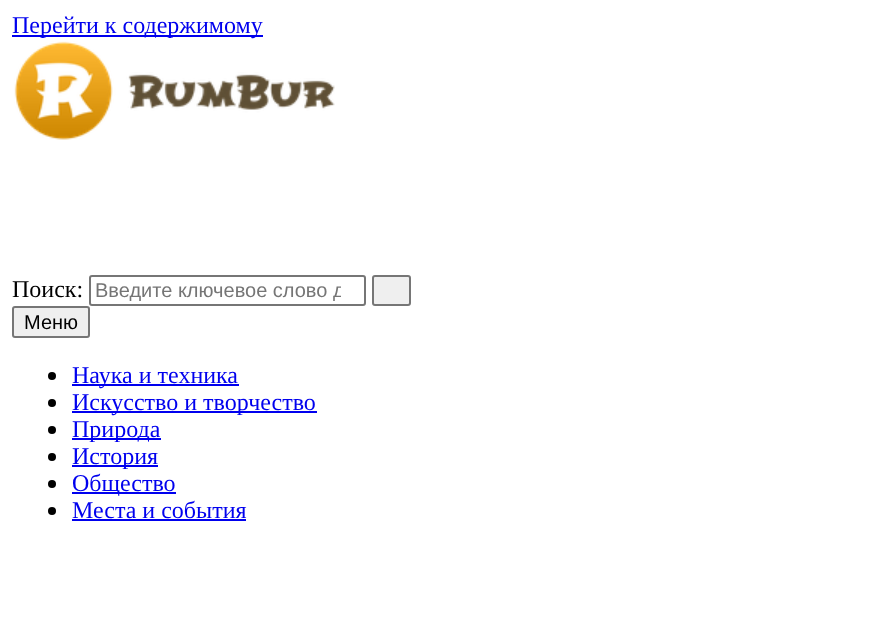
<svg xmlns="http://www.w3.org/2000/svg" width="892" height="634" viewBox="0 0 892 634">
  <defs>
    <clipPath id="clip1"><path d="M95 279h246v23H95z"/></clipPath>
  </defs>
  <rect width="100%" height="100%" fill="#fff"/>
  <path d="M12 35h251v2H12z" fill="#00e"/>
  <image x="14" y="41" width="321" height="99" href="img/1.png"/>
  <rect x="90" y="276" width="275" height="29" rx="2" fill="none" stroke="#767676" stroke-width="2"/>
  <rect x="373" y="276" width="37" height="29" rx="2" fill="#efefef" stroke="#767676" stroke-width="2"/>
  <rect x="13" y="307" width="76" height="30" rx="2" fill="#efefef" stroke="#767676" stroke-width="2"/>
  <circle cx="52" cy="376" r="4" fill="#000"/>
  <path d="M72 384h167v2H72z" fill="#00e"/>
  <circle cx="52" cy="403" r="4" fill="#000"/>
  <path d="M72 411h245v2H72z" fill="#00e"/>
  <circle cx="52" cy="430" r="4" fill="#000"/>
  <path d="M72 438h89v2H72z" fill="#00e"/>
  <circle cx="52" cy="457" r="4" fill="#000"/>
  <path d="M72 465h86v2H72z" fill="#00e"/>
  <circle cx="52" cy="484" r="4" fill="#000"/>
  <path d="M72 492h104v2H72z" fill="#00e"/>
  <circle cx="52" cy="511" r="4" fill="#000"/>
  <path d="M72 519h174v2H72z" fill="#00e"/>
  <text x="12" y="33" font-family="Liberation Serif" font-size="24" fill="#00e">Перейти к содержимому</text>
  <text x="12" y="297" font-family="Liberation Serif" font-size="24" fill="#000">Поиск:</text>
  <g clip-path="url(#clip1)">
    <text x="95" y="297" font-family="Liberation Sans" font-size="20" fill="#757575">Введите ключевое слово д</text>
  </g>
  <text x="24" y="329" font-family="Liberation Sans" font-size="20" fill="#000">Меню</text>
  <g font-family="Liberation Serif" font-size="24" fill="#00e">
    <text x="72" y="383">Наука и техника</text>
    <text x="72" y="410">Искусство и творчество</text>
    <text x="72" y="437">Природа</text>
    <text x="72" y="464">История</text>
    <text x="72" y="491">Общество</text>
    <text x="72" y="518">Места и события</text>
  </g>
</svg>
